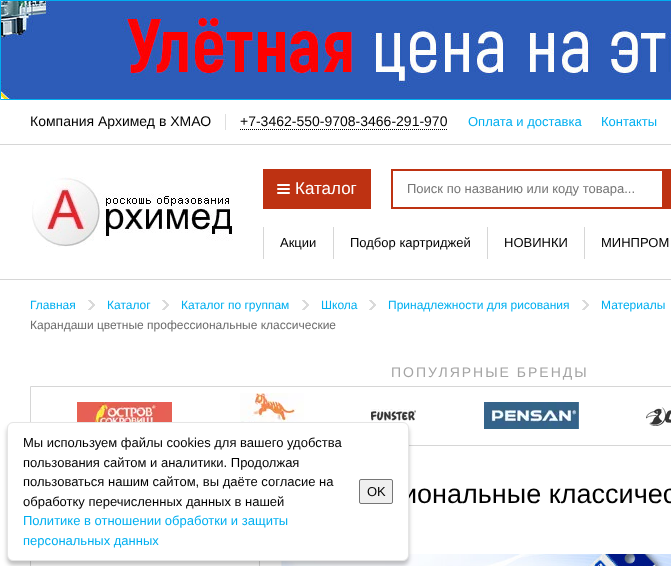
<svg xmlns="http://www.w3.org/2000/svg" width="671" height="566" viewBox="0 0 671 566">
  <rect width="100%" height="100%" fill="#fff"/>
  <image x="1" y="1" width="670" height="98" href="img/1.png"/>
  <path d="M0.5 0.5h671v99H0.5z" fill="none" stroke="#00aff0"/>
  <path d="M0 144h671v1H0z" fill="#d6d6d6"/>
  <path d="M225 114h1v16H225z" fill="#dedede"/>
  <path d="M240 129.5H448" fill="none" stroke="#000" stroke-dasharray="1 1"/>
  <path d="M0 279h671v1H0z" fill="#d6d6d6"/>
  <image x="32" y="177" width="201" height="70" href="img/2.png"/>
  <path d="M263 169h108v40H263z" fill="#be3212"/>
  <rect x="277" y="188" width="13" height="2" rx="1" fill="#fff"/>
  <rect x="277" y="184" width="13" height="2" rx="1" fill="#fff"/>
  <rect x="277" y="192" width="13" height="2" rx="1" fill="#fff"/>
  <path d="M392 170h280v38H392z" fill="none" stroke="#be3212" stroke-width="2"/>
  <path d="M662 171h9v36H662z" fill="#be3212"/>
  <path d="M333 227h1v32H333z" fill="#d6d6d6"/>
  <path d="M263 227h1v32H263z" fill="#d6d6d6"/>
  <path d="M487 227h1v32H487z" fill="#d6d6d6"/>
  <path d="M584 227h1v32H584z" fill="#d6d6d6"/>
  <image x="88" y="300" width="7" height="10" href="img/3.png"/>
  <image x="162" y="300" width="7" height="10" href="img/3.png"/>
  <image x="302" y="300" width="7" height="10" href="img/3.png"/>
  <image x="369" y="300" width="7" height="10" href="img/3.png"/>
  <image x="582" y="300" width="7" height="10" href="img/3.png"/>
  <path d="M30.5 386.5h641v59H30.5z" fill="none" stroke="#d6d6d6"/>
  <image x="77" y="402" width="95" height="20" href="img/4.png"/>
  <image x="240" y="393" width="64" height="29" href="img/5.png"/>
  <image x="371" y="409" width="45" height="12" href="img/6.png"/>
  <image x="484" y="402" width="95" height="27" href="img/7.png"/>
  <image x="646" y="407" width="25" height="19" href="img/8.png"/>
  <path d="M30.5 533.5h229v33H30.5z" fill="none" stroke="#d6d6d6"/>
  <image x="281" y="554" width="390" height="12" href="img/9.png"/>
  <rect x="7" y="426" width="402" height="139" rx="6" fill="#00000040" filter="blur(2px)"/>
  <g font-family="Liberation Sans" font-size="14" fill="#000">
    <text x="30" y="126">Компания Архимед в ХМАО</text>
    <text x="240" y="126">+7-3462-550-9708-3466-291-970</text>
  </g>
  <g font-family="Liberation Sans" font-size="13" fill="#00aff0">
    <text x="468" y="126">Оплата и доставка</text>
    <text x="601" y="126">Контакты</text>
  </g>
  <text x="295" y="194" font-family="Liberation Sans" font-size="17" fill="#fff">Каталог</text>
  <text x="407" y="193" font-family="Liberation Sans" font-size="13" fill="#757575">Поиск по названию или коду товара...</text>
  <g font-family="Liberation Sans" font-size="13" fill="#000">
    <text x="280" y="247">Акции</text>
    <text x="350" y="247">Подбор картриджей</text>
    <text x="504" y="247">НОВИНКИ</text>
    <text x="601" y="247">МИНПРОМ</text>
  </g>
  <g font-family="Liberation Sans" font-size="12" fill="#00aff0">
    <text x="30" y="309">Главная</text>
    <text x="107" y="309">Каталог</text>
    <text x="181" y="309">Каталог по группам</text>
    <text x="321" y="309">Школа</text>
    <text x="388" y="309">Принадлежности для рисования</text>
    <text x="601" y="309">Материалы</text>
  </g>
  <text x="30" y="329" font-family="Liberation Sans" font-size="12" fill="#6c6c6c">Карандаши цветные профессиональные классические</text>
  <text x="391" y="377" font-family="Liberation Sans" font-size="14" letter-spacing="2" fill="#a4a4a4">ПОПУЛЯРНЫЕ БРЕНДЫ</text>
  <text x="402" y="503" font-family="Liberation Sans" font-size="27" fill="#000">иональные классичес</text>
  <rect x="7.5" y="422.5" width="401" height="138" rx="5.5" fill="#fff" stroke="#e5e5e5"/>
  <g font-family="Liberation Sans" font-size="13" fill="#000">
    <text x="23" y="447">Мы используем файлы cookies для вашего удобства</text>
    <text x="23" y="467">пользования сайтом и аналитики. Продолжая</text>
    <text x="23" y="486">пользоваться нашим сайтом, вы даёте согласие на</text>
    <text x="23" y="506">обработку перечисленных данных в нашей</text>
  </g>
  <g font-family="Liberation Sans" font-size="13" fill="#00aff0">
    <text x="23" y="525">Политике в отношении обработки и защиты</text>
    <text x="23" y="545">персональных данных</text>
  </g>
  <rect x="359.5" y="479.5" width="33" height="24" rx="1.5" fill="#efefef" stroke="#767676"/>
  <text x="367" y="496" font-family="Liberation Sans" font-size="13" fill="#000">OK</text>
</svg>
